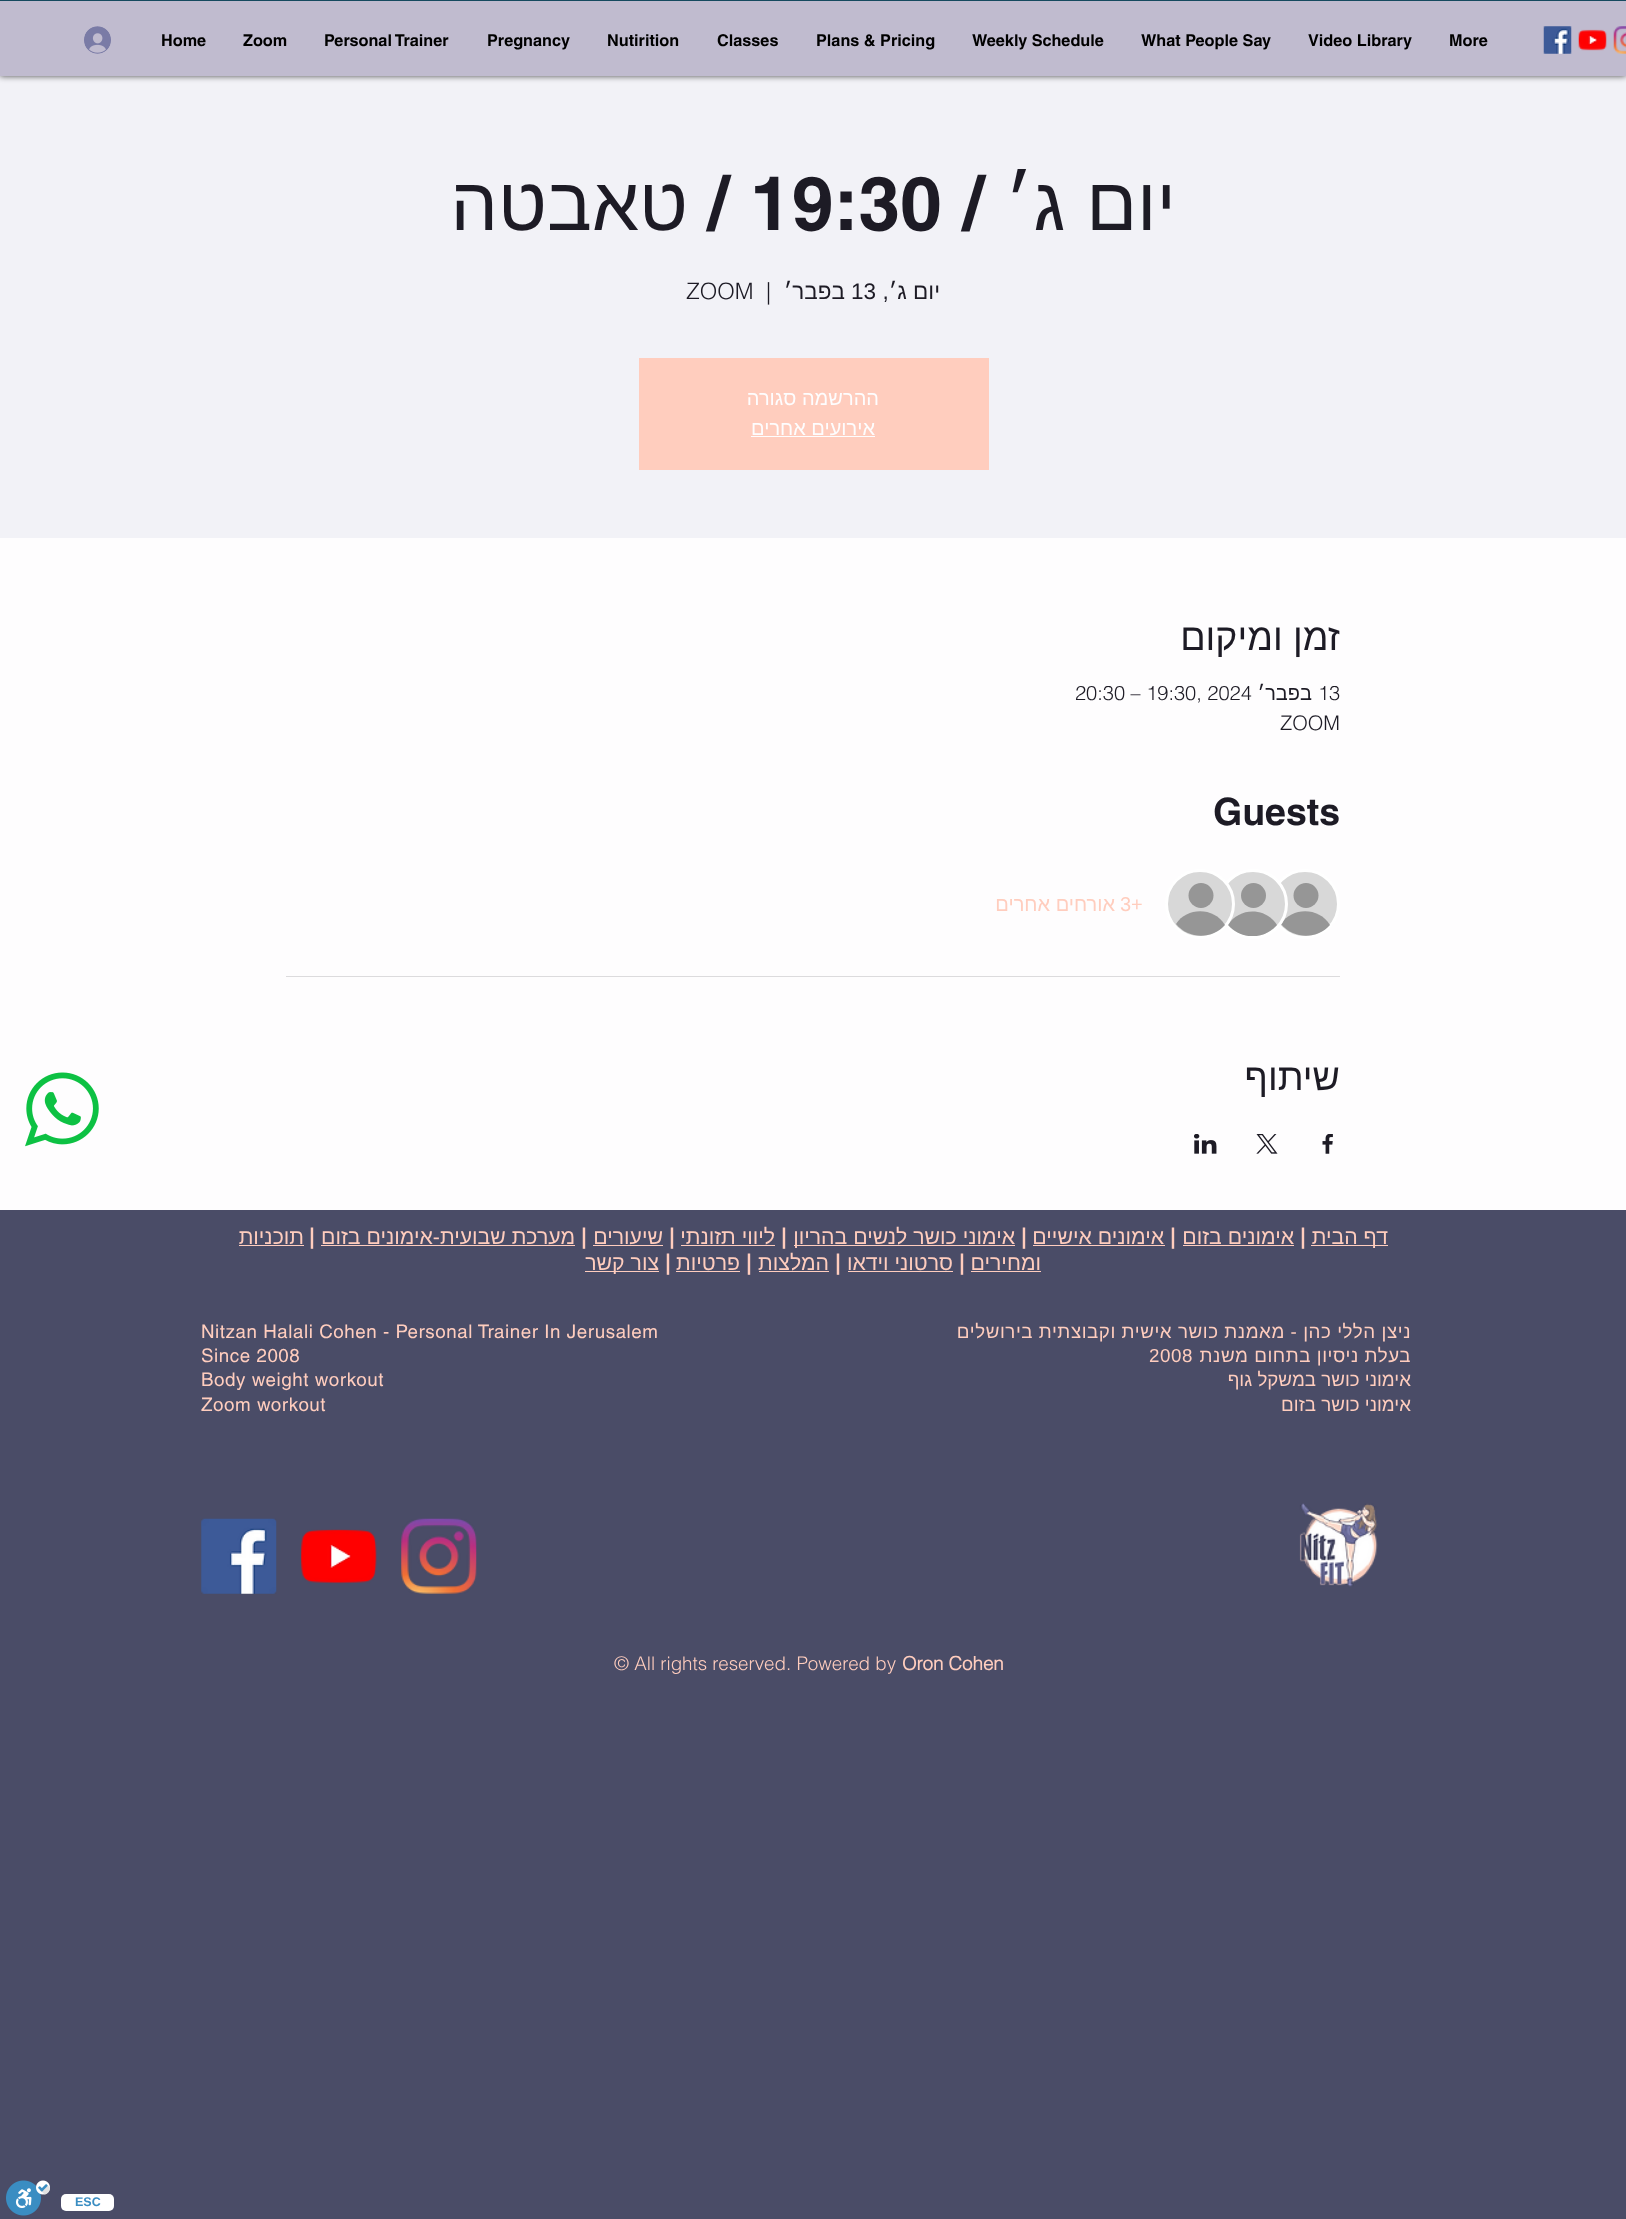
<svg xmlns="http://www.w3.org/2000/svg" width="1626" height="2219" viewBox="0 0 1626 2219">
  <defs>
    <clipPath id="clip1"><path d="M1220 871h65v65H1220z"/></clipPath>
  </defs>
  <rect width="100%" height="100%" fill="#4a4c67"/>
  <path d="M0 76h1626v462H0z" fill="#f2f2f7"/>
  <path d="M0 0h1626v76H0z" fill="#000000b3" filter="blur(3px)"/>
  <path d="M0 1h1626v75H0z" fill="#c0bbcf"/>
  <image x="1613" y="26" width="13" height="28" href="img/1.png"/>
  <image x="1578" y="29" width="29" height="22" href="img/2.png"/>
  <image x="1543" y="26" width="29" height="28" href="img/3.png"/>
  <image x="84" y="26" width="27" height="28" href="img/4.png"/>
  <path d="M639 358h350v112H639z" fill="#ffcdbe"/>
  <path d="M751 436h124v1H751z" fill="#fefdfe"/>
  <path d="M0 538h1626v672H0z" fill="#fefdfe"/>
  <circle cx="1305" cy="904" r="33.5" fill="#d8d8d8" stroke="#fff" stroke-width="3"/>
  <circle cx="1306" cy="895.5" r="12.5" fill="#969696"/>
  <path d="M1330 925C1317 940 1293 939 1281 924C1292 907 1319 907 1330 925Z" fill="#969696"/>
  <circle cx="1253" cy="904" r="33.5" fill="#d8d8d8" stroke="#fff" stroke-width="3"/>
  <circle cx="1253.5" cy="895.5" r="12.5" fill="#969696"/>
  <g clip-path="url(#clip1)">
    <path d="M1277 925C1264 940 1241 940 1228 925C1239 907 1266 907 1277 925Z" fill="#969696"/>
  </g>
  <circle cx="1200" cy="904" r="33.5" fill="#d8d8d8" stroke="#fff" stroke-width="3"/>
  <circle cx="1201" cy="895.5" r="12.5" fill="#969696"/>
  <path d="M1225 925C1212 940 1188 939 1176 924C1187 907 1214 907 1225 925Z" fill="#969696"/>
  <path d="M286 976h1054v1H286z" fill="#dcdbdd"/>
  <image x="1322" y="1134" width="11" height="20" href="img/5.png"/>
  <image x="1256" y="1134" width="22" height="20" href="img/6.png"/>
  <image x="1194" y="1134" width="23" height="20" href="img/7.png"/>
  <image x="25" y="1072" width="74" height="75" href="img/8.png"/>
  <path d="M1311 1245h77v1H1311z" fill="#ffcdbe"/>
  <path d="M1183 1245h111v1H1183z" fill="#ffcdbe"/>
  <path d="M1033 1245h132v1H1033z" fill="#ffcdbe"/>
  <path d="M794 1245h221v1H794z" fill="#ffcdbe"/>
  <path d="M681 1245h94v1H681z" fill="#ffcdbe"/>
  <path d="M593 1245h70v1H593z" fill="#ffcdbe"/>
  <path d="M321 1245h254v1H321z" fill="#ffcdbe"/>
  <path d="M239 1245h65v1H239z" fill="#ffcdbe"/>
  <path d="M971 1271h70v1H971z" fill="#ffcdbe"/>
  <path d="M848 1271h105v1H848z" fill="#ffcdbe"/>
  <path d="M759 1271h70v1H759z" fill="#ffcdbe"/>
  <path d="M676 1271h64v1H676z" fill="#ffcdbe"/>
  <path d="M585 1271h74v1H585z" fill="#ffcdbe"/>
  <image x="1299" y="1503" width="79" height="84" href="img/9.png"/>
  <image x="401" y="1518" width="76" height="76" href="img/10.png"/>
  <image x="301" y="1529" width="76" height="55" href="img/11.png"/>
  <image x="201" y="1518" width="76" height="76" href="img/12.png"/>
  <path d="M0 0h1626v1H0z" fill="#15495f"/>
  <rect x="61" y="2194" width="53" height="17" rx="5" fill="#fff"/>
  <image x="6" y="2180" width="44" height="36" href="img/13.png"/>
  <g font-family="helvetica" font-size="16.25" font-weight="bold" fill="#000">
    <text x="1449" y="46">More</text>
    <text x="1308" y="46">Video Library</text>
    <text x="1141" y="46">What People Say</text>
    <text x="972" y="46">Weekly Schedule</text>
    <text x="816" y="46">Plans &amp; Pricing</text>
    <text x="717" y="46">Classes</text>
    <text x="607" y="46">Nutirition</text>
    <text x="487" y="46">Pregnancy</text>
    <text x="324" y="46">Personal Trainer</text>
    <text x="243" y="46">Zoom</text>
    <text x="161" y="46">Home</text>
  </g>
  <text x="1176" y="230" font-family="Liberation Sans" font-size="75" direction="rtl" fill="#1d1b25">יום ג׳</text>
  <text x="984" y="230" font-family="helvetica" font-size="75" font-weight="bold" direction="rtl" fill="#1d1b25">/</text>
  <text x="750" y="230" font-family="helvetica" font-size="75" font-weight="bold" fill="#1d1b25">19:30</text>
  <text x="729" y="230" font-family="helvetica" font-size="75" font-weight="bold" direction="rtl" fill="#1d1b25">/</text>
  <text x="688" y="230" font-family="Liberation Sans" font-size="75" direction="rtl" fill="#1d1b25">טאבטה</text>
  <text x="940" y="299" font-family="Liberation Sans" font-size="22.5" direction="rtl" fill="#1d1b25">יום ג׳,</text>
  <text x="851" y="299" font-family="Liberation Sans" font-size="22.5" fill="#1d1b25">13</text>
  <text x="845" y="299" font-family="Liberation Sans" font-size="22.5" direction="rtl" fill="#1d1b25">בפבר׳</text>
  <g font-family="helvetica" font-size="22.5" font-weight="300" fill="#1d1b25">
    <text x="766" y="299">|</text>
    <text x="686" y="299">ZOOM</text>
  </g>
  <g font-family="Liberation Sans" font-size="20" direction="rtl" fill="#fefdfe">
    <text x="879" y="405">ההרשמה סגורה</text>
    <text x="875" y="435">אירועים אחרים</text>
  </g>
  <text x="1340" y="650" font-family="Liberation Sans" font-size="37.5" direction="rtl" fill="#1d1b25">זמן ומיקום</text>
  <text x="1318" y="700" font-family="helvetica" font-size="20" font-weight="300" fill="#1d1b25">13</text>
  <text x="1312" y="700" font-family="Liberation Sans" font-size="20" direction="rtl" fill="#1d1b25">בפבר׳</text>
  <g font-family="helvetica" font-size="20" font-weight="300" fill="#1d1b25">
    <text x="1075" y="700">20:30 – 19:30, 2024</text>
    <text x="1280" y="730">ZOOM</text>
  </g>
  <text x="1213" y="825" font-family="helvetica" font-size="37.5" font-weight="bold" fill="#1d1b25">Guests</text>
  <text x="1120" y="911" font-family="Liberation Sans" font-size="20" fill="#ffcdbe">3+</text>
  <text x="1115" y="911" font-family="Liberation Sans" font-size="20" direction="rtl" fill="#ffcdbe">אורחים אחרים</text>
  <text x="1340" y="1090" font-family="Liberation Sans" font-size="37.5" direction="rtl" fill="#1d1b25">שיתוף</text>
  <text x="1388" y="1244" font-family="Liberation Sans" font-size="21.25" direction="rtl" fill="#ffcdbe">דף הבית</text>
  <text x="1300" y="1244" font-family="helvetica" font-size="21.25" font-weight="bold" fill="#ffcdbe">|</text>
  <text x="1294" y="1244" font-family="Liberation Sans" font-size="21.25" direction="rtl" fill="#ffcdbe">אימונים בזום</text>
  <text x="1170" y="1244" font-family="helvetica" font-size="21.25" font-weight="bold" fill="#ffcdbe">|</text>
  <text x="1164" y="1244" font-family="Liberation Sans" font-size="21.25" direction="rtl" fill="#ffcdbe">אימונים אישיים</text>
  <text x="1021" y="1244" font-family="helvetica" font-size="21.25" font-weight="bold" fill="#ffcdbe">|</text>
  <text x="1015" y="1244" font-family="Liberation Sans" font-size="21.25" direction="rtl" fill="#ffcdbe">אימוני כושר לנשים בהריון</text>
  <text x="781" y="1244" font-family="helvetica" font-size="21.25" font-weight="bold" fill="#ffcdbe">|</text>
  <text x="775" y="1244" font-family="Liberation Sans" font-size="21.25" direction="rtl" fill="#ffcdbe">ליווי תזונתי</text>
  <text x="669" y="1244" font-family="helvetica" font-size="21.25" font-weight="bold" fill="#ffcdbe">|</text>
  <text x="663" y="1244" font-family="Liberation Sans" font-size="21.25" direction="rtl" fill="#ffcdbe">שיעורים</text>
  <text x="581" y="1244" font-family="helvetica" font-size="21.25" font-weight="bold" fill="#ffcdbe">|</text>
  <text x="575" y="1244" font-family="Liberation Sans" font-size="21.25" direction="rtl" fill="#ffcdbe">מערכת שבועית-אימונים בזום</text>
  <text x="309" y="1244" font-family="helvetica" font-size="21.25" font-weight="bold" fill="#ffcdbe">|</text>
  <g font-family="Liberation Sans" font-size="21.25" direction="rtl" fill="#ffcdbe">
    <text x="304" y="1244">תוכניות</text>
    <text x="1041" y="1270">ומחירים</text>
  </g>
  <text x="959" y="1270" font-family="helvetica" font-size="21.25" font-weight="bold" fill="#ffcdbe">|</text>
  <text x="953" y="1270" font-family="Liberation Sans" font-size="21.25" direction="rtl" fill="#ffcdbe">סרטוני וידאו</text>
  <text x="835" y="1270" font-family="helvetica" font-size="21.25" font-weight="bold" fill="#ffcdbe">|</text>
  <text x="829" y="1270" font-family="Liberation Sans" font-size="21.25" direction="rtl" fill="#ffcdbe">המלצות</text>
  <text x="746" y="1270" font-family="helvetica" font-size="21.25" font-weight="bold" fill="#ffcdbe">|</text>
  <text x="740" y="1270" font-family="Liberation Sans" font-size="21.25" direction="rtl" fill="#ffcdbe">פרטיות</text>
  <text x="665" y="1270" font-family="helvetica" font-size="21.25" font-weight="bold" fill="#ffcdbe">|</text>
  <text x="659" y="1270" font-family="Liberation Sans" font-size="21.25" direction="rtl" fill="#ffcdbe">צור קשר</text>
  <g font-family="Liberation Sans" font-size="18.75" letter-spacing="0.55" direction="rtl" fill="#ffcdbe">
    <text x="1411" y="1338">ניצן הללי כהן - מאמנת כושר אישית וקבוצתית בירושלים</text>
    <text x="1411" y="1362">בעלת ניסיון בתחום משנת</text>
  </g>
  <text x="1149" y="1362" font-family="Liberation Sans" font-size="18.75" letter-spacing="0.55" fill="#ffcdbe">2008</text>
  <g font-family="Liberation Sans" font-size="18.75" direction="rtl" fill="#ffcdbe">
    <text x="1411" y="1386">אימוני כושר במשקל גוף</text>
    <text x="1411" y="1411">אימוני כושר בזום</text>
  </g>
  <g font-family="helvetica" font-size="18.75" letter-spacing="0.55" fill="#ffcdbe">
    <text x="201" y="1338">Nitzan Halali Cohen - Personal Trainer In Jerusalem</text>
    <text x="201" y="1362">Since 2008</text>
    <text x="201" y="1386">Body weight workout</text>
    <text x="201" y="1411">Zoom workout</text>
  </g>
  <text x="902" y="1670" font-family="'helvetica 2'" font-size="18.75" font-weight="bold" fill="#ffcdbe">Oron Cohen</text>
  <text x="614" y="1670" font-family="helvetica" font-size="18.75" font-weight="300" fill="#ffcdbe">© All rights reserved. Powered by</text>
  <text x="75" y="2206" font-family="Liberation Sans" font-size="12.5" font-weight="bold" fill="#3a8dc2">ESC</text>
</svg>
